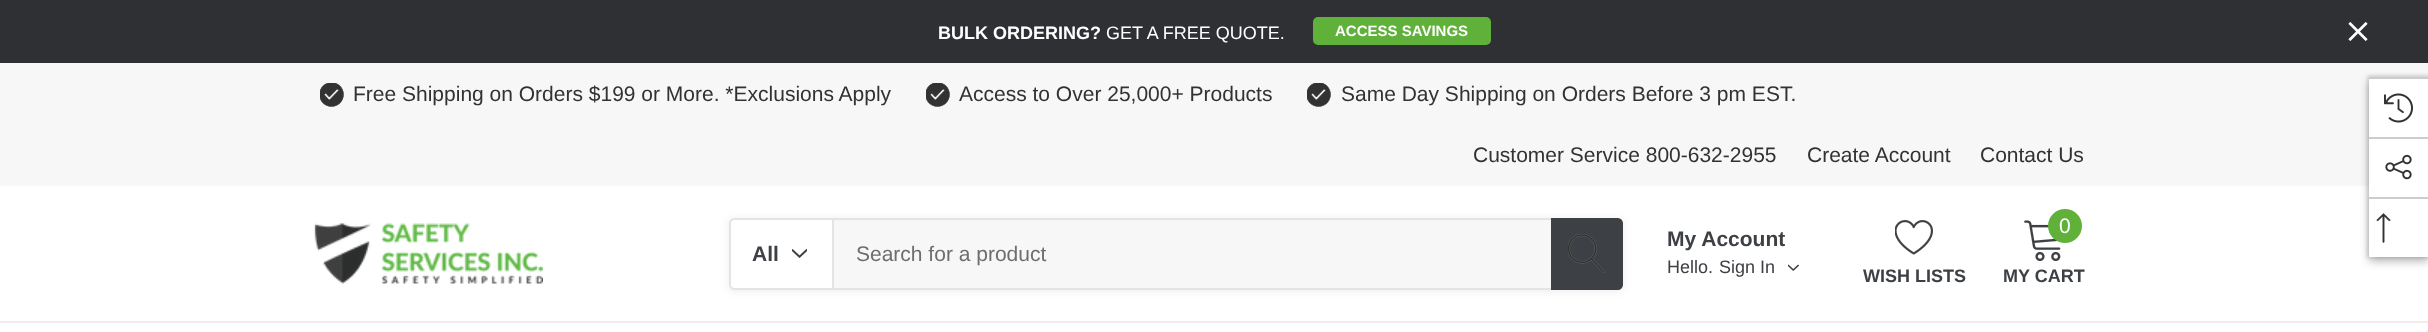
<svg xmlns="http://www.w3.org/2000/svg" width="2428" height="332" viewBox="0 0 2428 332">
  <rect width="100%" height="100%" fill="#fff"/>
  <path d="M0 0h2428v63H0z" fill="#2e3034"/>
  <rect x="1313" y="17" width="178" height="28" rx="5" fill="#5fb139"/>
  <image x="2348" y="22" width="20" height="19" href="img/1.png"/>
  <path d="M0 63h2428v123H0z" fill="#f7f7f7"/>
  <image x="320" y="83" width="24" height="24" href="img/2.png"/>
  <image x="926" y="83" width="24" height="24" href="img/2.png"/>
  <image x="1307" y="83" width="24" height="24" href="img/2.png"/>
  <image x="314" y="223" width="229" height="61" href="img/3.png"/>
  <path d="M729 219h894v72H729z" fill="#00000012" filter="blur(4.5px)"/>
  <path d="M734 219H833V289H734C732 289 730 287 730 285V223C730 221 732 219 734 219Z" fill="#fff" stroke="#e2e4e8" stroke-width="2"/>
  <image x="792" y="249" width="15" height="9" href="img/4.png"/>
  <path d="M834 220h717v68H834z" fill="#f7f7f7"/>
  <path d="M834 218h717v2H834z" fill="#e2e4e8"/>
  <path d="M834 288h717v2H834z" fill="#e2e4e8"/>
  <path d="M1552 219H1618C1620 219 1622 221 1622 223V285C1622 287 1620 289 1618 289H1552Z" fill="#3d4044" stroke="#3d4044" stroke-width="2"/>
  <image x="1568" y="234" width="37" height="39" href="img/5.png"/>
  <image x="1788" y="264" width="11" height="7" href="img/6.png"/>
  <image x="2024" y="220" width="37" height="41" href="img/7.png"/>
  <circle cx="2065" cy="226" r="17" fill="#5fb139"/>
  <image x="1895" y="220" width="38" height="35" href="img/8.png"/>
  <path d="M0 321h2428v2H0z" fill="#eee"/>
  <path d="M2369 81h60v180H2369z" fill="#0000004d" filter="blur(5px)"/>
  <path d="M2367 75h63v183H2367z" fill="#0000001a" filter="blur(1.5px)"/>
  <path d="M2369 79h59v178H2369z" fill="#fff"/>
  <path d="M2369 77h59v2H2369z" fill="#ccc"/>
  <image x="2384" y="93" width="29" height="30" href="img/9.png"/>
  <path d="M2369 137h59v2H2369z" fill="#ccc"/>
  <image x="2385" y="154" width="27" height="26" href="img/10.png"/>
  <path d="M2369 197h59v2H2369z" fill="#ccc"/>
  <image x="2376" y="213" width="15" height="30" href="img/11.png"/>
  <path d="M2426 330h2v2H2426z" fill="#f5f5f5"/>
  <text x="938" y="39" font-family="Arimo" font-size="18" font-weight="bold" fill="#fff">BULK ORDERING?</text>
  <text x="1106" y="39" font-family="Arimo" font-size="18" fill="#fff">GET A FREE QUOTE.</text>
  <text x="1335" y="36" font-family="Arimo" font-size="15" font-weight="bold" fill="#fff">ACCESS SAVINGS</text>
  <g font-family="Arimo" font-size="21" fill="#323232">
    <text x="353" y="101">Free Shipping on Orders $199 or More. *Exclusions Apply</text>
    <text x="959" y="101">Access to Over 25,000+ Products</text>
    <text x="1341" y="101">Same Day Shipping on Orders Before 3 pm EST.</text>
    <text x="1473" y="162">Customer Service 800-632-2955</text>
    <text x="1807" y="162">Create Account</text>
    <text x="1980" y="162">Contact Us</text>
  </g>
  <text x="752" y="261" font-family="Arimo" font-size="21" font-weight="bold" fill="#3d4044">All</text>
  <text x="856" y="261" font-family="Arimo" font-size="21" fill="#6e6e6e">Search for a product</text>
  <text x="1667" y="246" font-family="Arimo" font-size="21" font-weight="bold" fill="#3d4044">My Account</text>
  <g font-family="Arimo" font-size="18" fill="#3d4044">
    <text x="1667" y="273">Hello.</text>
    <text x="1719" y="273">Sign In</text>
  </g>
  <text x="2059" y="233" font-family="Arimo" font-size="21" fill="#fff">0</text>
  <g font-family="Arimo" font-size="18" font-weight="bold" fill="#3d4044">
    <text x="2003" y="282">MY CART</text>
    <text x="1863" y="282">WISH LISTS</text>
  </g>
</svg>
